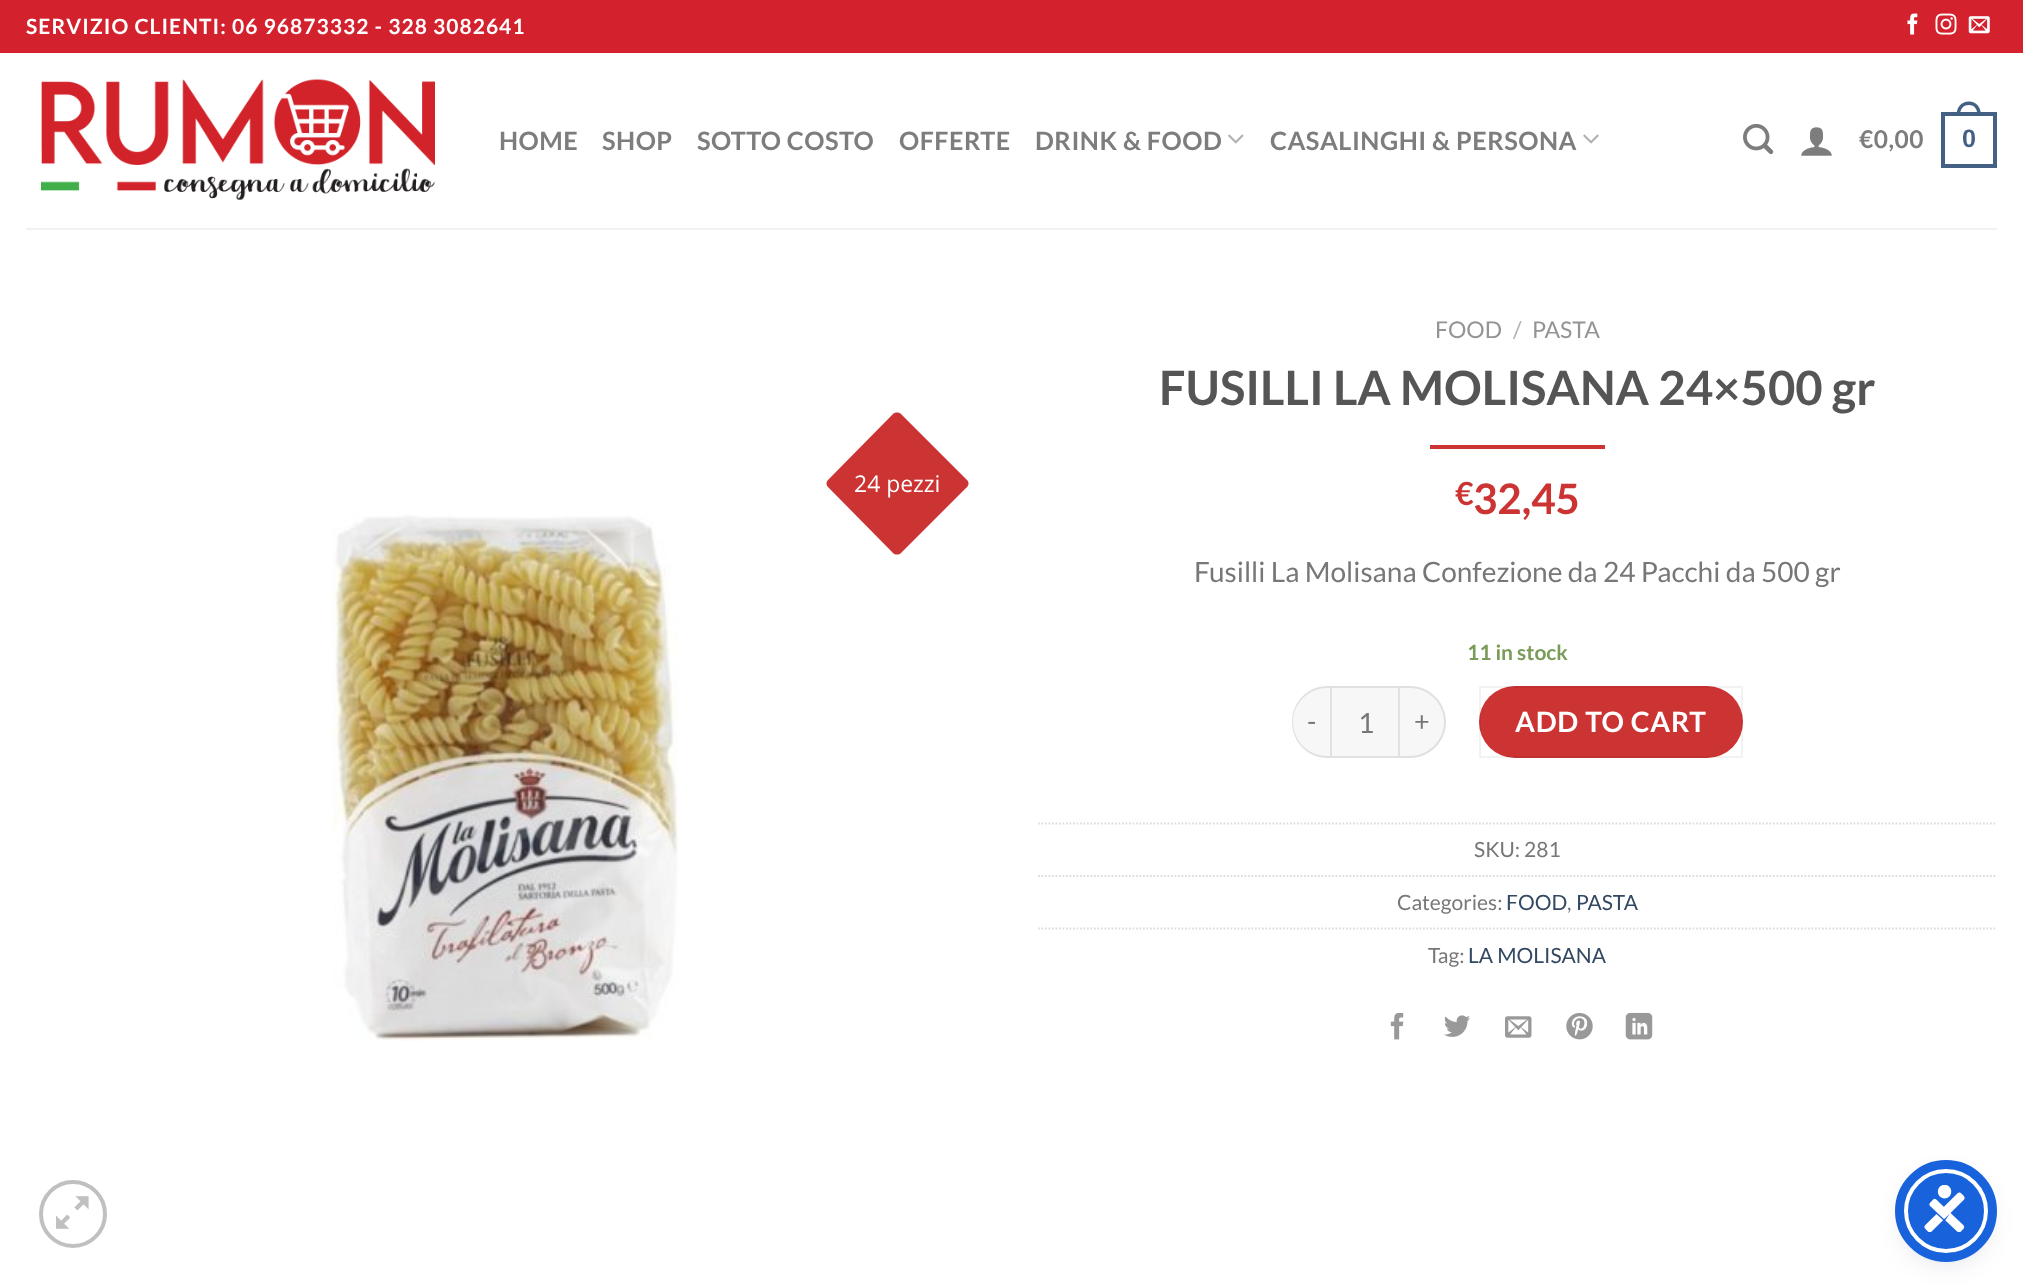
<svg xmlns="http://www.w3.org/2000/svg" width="2023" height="1288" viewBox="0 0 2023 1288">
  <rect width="100%" height="100%" fill="#fff"/>
  <path d="M0 0h2023v53H0z" fill="#d3212d"/>
  <image x="1907" y="13" width="11" height="22" href="img/1.png"/>
  <image x="1935" y="13" width="22" height="22" href="img/2.png"/>
  <image x="1968" y="16" width="22" height="18" href="img/3.png"/>
  <image x="41" y="79" width="394" height="121" href="img/4.png"/>
  <image x="1228" y="134" width="16" height="10" href="img/5.png"/>
  <image x="1583" y="134" width="16" height="10" href="img/6.png"/>
  <image x="1743" y="123" width="31" height="32" href="img/7.png"/>
  <image x="1801" y="127" width="31" height="29" href="img/8.png"/>
  <path d="M1943 114h52v52H1943z" fill="none" stroke="#446084" stroke-width="4"/>
  <path d="M1969 101.5C1977 101.5 1981 108 1981 115.5H1956.5C1956.5 108 1960.5 101.5 1969 101.5ZM1969 105C1975 105 1977.5 110 1977.5 115.5H1960C1960 110 1962.5 105 1969 105Z" fill="#446084" fill-rule="evenodd"/>
  <path d="M26 228h1971v2H26z" fill="#f1f1f1"/>
  <path d="M901 414L967 480C969 482 969 485 967 487L901 553C899 555 895 555 893 553L828 487C826 485 826 482 828 480L893 414C895 412 899 412 901 414Z" fill="#c33"/>
  <image x="332" y="515" width="347" height="526" href="img/9.png"/>
  <circle cx="73" cy="1214" r="32" fill="none" stroke="#c0c0c0" stroke-width="4"/>
  <image x="56" y="1196" width="33" height="33" href="img/10.png"/>
  <path d="M1430 445h175v4H1430z" fill="#c33"/>
  <path d="M1328 686H1330V758H1328C1308 758 1292 742 1292 722C1292 702 1308 686 1328 686Z" fill="#f7f7f7"/>
  <path d="M1327 686H1330V758H1327C1308 758 1292 742 1292 722C1292 702 1308 686 1327 686ZM1327 688H1330V756H1327C1309 756 1293 741 1293 722C1293 703 1309 688 1327 688Z" fill="#00000017" fill-rule="evenodd"/>
  <path d="M1331 687h68v70H1331z" fill="#f7f7f7" stroke="#e1e1e1" stroke-width="2"/>
  <path d="M1400 686H1410C1430 686 1446 702 1446 722C1446 742 1430 758 1410 758H1400Z" fill="#f7f7f7"/>
  <path d="M1400 686H1410C1429 686 1446 702 1446 722C1446 742 1429 758 1410 758H1400ZM1400 688H1410C1428 688 1444 703 1444 722C1444 741 1428 756 1410 756H1400Z" fill="#00000017" fill-rule="evenodd"/>
  <rect x="1479" y="686" width="264" height="72" rx="36" fill="#c33"/>
  <path d="M1480 687h262v70H1480z" fill="none" stroke="#0000000d" stroke-width="2"/>
  <path d="M1038 823.5H1997" fill="none" stroke="#ddd" stroke-width="1.8" stroke-dasharray="1.75 1.75"/>
  <path d="M1038 876H1997" fill="none" stroke="#ddd" stroke-width="1.8" stroke-dasharray="1.75 1.75"/>
  <path d="M1038 928.5H1997" fill="none" stroke="#ddd" stroke-width="1.8" stroke-dasharray="1.75 1.75"/>
  <image x="1390" y="1012" width="14" height="28" href="img/11.png"/>
  <image x="1444" y="1015" width="26" height="22" href="img/12.png"/>
  <image x="1505" y="1016" width="27" height="22" href="img/13.png"/>
  <image x="1566" y="1012" width="27" height="28" href="img/14.png"/>
  <image x="1625" y="1012" width="28" height="28" href="img/15.png"/>
  <rect x="1904" y="1173" width="84" height="84" rx="42" fill="#5d649433" filter="blur(3.5px)"/>
  <rect x="1904" y="1178" width="84" height="84" rx="42" fill="#252c6126" filter="blur(13px)"/>
  <circle cx="1946" cy="1211" r="40" fill="#1863dc" stroke="#fff" stroke-width="4"/>
  <circle cx="1946" cy="1211" r="46.5" fill="none" stroke="#1863dc" stroke-width="9"/>
  <image x="1924" y="1185" width="41" height="47" href="img/16.png"/>
  <text x="26" y="34" font-family="Lato" font-size="21" font-weight="bold" letter-spacing="1.05" fill="#fff">SERVIZIO CLIENTI: 06 96873332 - 328 3082641</text>
  <g font-family="Lato" font-size="25.25" font-weight="bold" letter-spacing="0.5" fill="#7d7d7d">
    <text x="499" y="150">HOME</text>
    <text x="602" y="150">SHOP</text>
    <text x="697" y="150">SOTTO COSTO</text>
    <text x="899" y="150">OFFERTE</text>
    <text x="1035" y="150">DRINK &amp; FOOD</text>
    <text x="1270" y="150">CASALINGHI &amp; PERSONA</text>
  </g>
  <text x="1859" y="148" font-family="Lato" font-size="24.5" font-weight="bold" letter-spacing="0.5" fill="#7d7d7d">€0,00</text>
  <text x="1962" y="147" font-family="Liberation Sans" font-size="25.25" font-weight="bold" letter-spacing="0.5" fill="#446084">0</text>
  <text x="854" y="492" font-family="Open Sans" font-size="23" fill="#fff">24 pezzi</text>
  <text x="1435" y="338" font-family="Lato" font-size="23" fill="#949494">FOOD</text>
  <text x="1513" y="338" font-family="Lato" font-size="23" fill="#b2b2b2">/</text>
  <text x="1532" y="338" font-family="Lato" font-size="23" fill="#949494">PASTA</text>
  <text x="1159" y="405" font-family="Lato" font-size="47.25" font-weight="bold" fill="#555">FUSILLI LA MOLISANA 24×500 gr</text>
  <text x="1455" y="505" font-family="Lato" font-size="32" font-weight="bold" fill="#c33">€</text>
  <text x="1473" y="514" font-family="Lato" font-size="42" font-weight="bold" fill="#c33">32,45</text>
  <text x="1194" y="582" font-family="Lato" font-size="28" fill="#777">Fusilli La Molisana Confezione da 24 Pacchi da 500 gr</text>
  <text x="1467" y="660" font-family="Lato" font-size="21" font-weight="bold" fill="#7a9c59">11 in stock</text>
  <text x="1307" y="731" font-family="Lato" font-size="27" letter-spacing="1" fill="#777">-</text>
  <text x="1358" y="733" font-family="Lato" font-size="28" fill="#777">1</text>
  <text x="1414" y="731" font-family="Lato" font-size="27" letter-spacing="1" fill="#777">+</text>
  <text x="1515" y="732" font-family="Lato" font-size="28" font-weight="bold" letter-spacing="0.75" fill="#fff">ADD TO CART</text>
  <g font-family="Lato" font-size="21" fill="#777">
    <text x="1474" y="857">SKU: 281</text>
    <text x="1397" y="910">Categories:</text>
  </g>
  <text x="1506" y="910" font-family="Lato" font-size="21" fill="#334862">FOOD</text>
  <text x="1567" y="910" font-family="Lato" font-size="21" fill="#777">,</text>
  <text x="1576" y="910" font-family="Lato" font-size="21" fill="#334862">PASTA</text>
  <text x="1428" y="963" font-family="Lato" font-size="21" fill="#777">Tag:</text>
  <text x="1468" y="963" font-family="Lato" font-size="21" fill="#334862">LA MOLISANA</text>
</svg>
